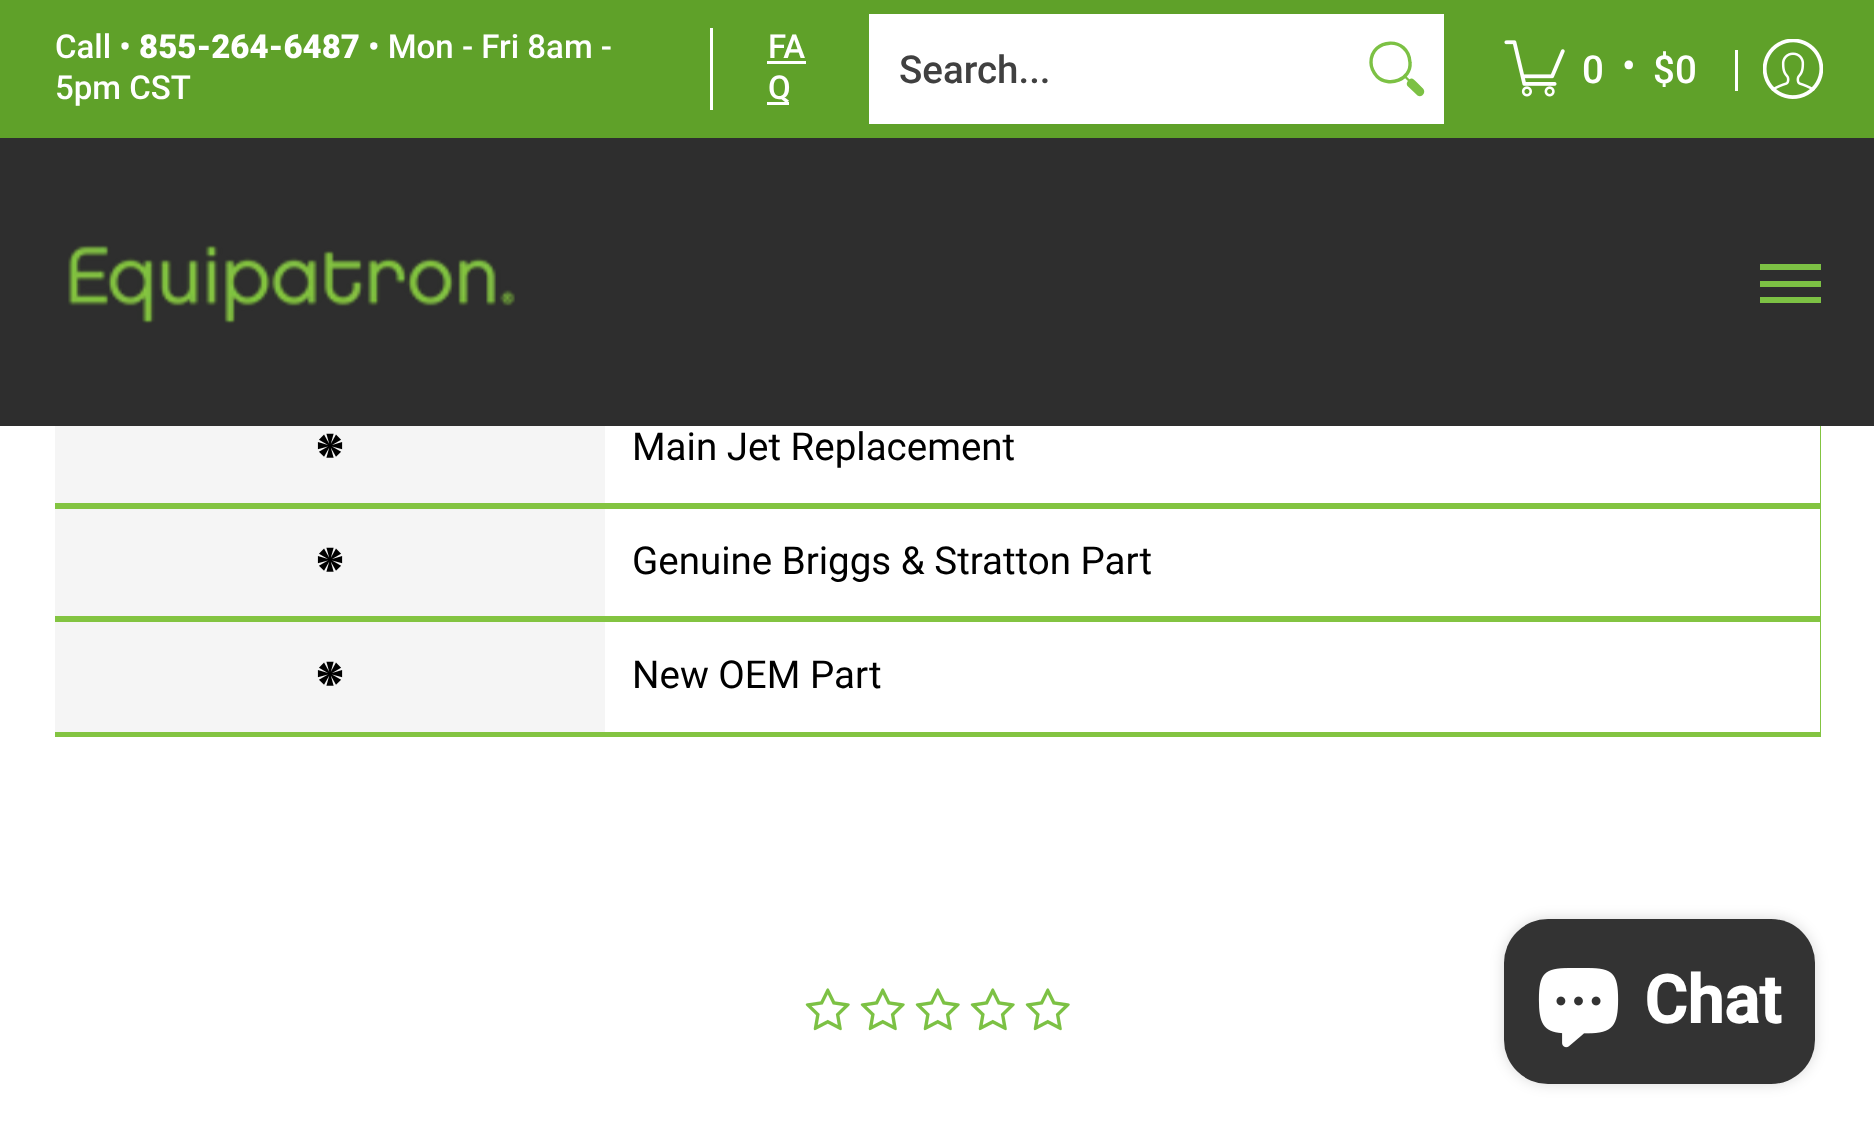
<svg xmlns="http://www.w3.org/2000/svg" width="1874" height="1141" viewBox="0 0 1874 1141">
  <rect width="100%" height="100%" fill="#fff"/>
  <path d="M605 503V509H1821V393H1820V503Z" fill="#83c441"/>
  <path d="M0 138h1874v288H0z" fill="#2e2e2e"/>
  <path d="M0 0h1874v138H0z" fill="#5fa129"/>
  <path d="M710 28h3v82H710z" fill="#fff"/>
  <path d="M767 61h39v3H767z" fill="#fff"/>
  <path d="M767 102h22v3H767z" fill="#fff"/>
  <path d="M869 14h575v110H869z" fill="#fff"/>
  <path d="M1371 62.5C1371 67.5 1373.5 72.5 1377 76.5C1389 88 1411.5 79.5 1410 62.5C1408.5 35.5 1371 38 1371 62.5Z" fill="none" stroke="#7cc144" stroke-width="3.4" stroke-linecap="round" stroke-linejoin="round"/>
  <path d="M1404 75.5L1409.5 81" fill="none" stroke="#7cc144" stroke-width="2.3" stroke-linejoin="round"/>
  <path d="M1423 88.5C1426.5 92.5 1422 98 1417.5 95.5L1407.5 86C1406.5 84.5 1406.5 83 1407.5 81.5C1411 76 1413.5 79 1417 82.5Z" fill="#7cc144"/>
  <image x="1504" y="40" width="61" height="57" href="img/1.png"/>
  <path d="M1735 50h3v41H1735z" fill="#fff"/>
  <image x="1763" y="39" width="60" height="60" href="img/2.png"/>
  <image x="68" y="245" width="447" height="79" href="img/3.png"/>
  <path d="M1760 264h61v6H1760z" fill="#7cc144"/>
  <path d="M1760 297h61v6H1760z" fill="#7cc144"/>
  <path d="M1760 281h61v6H1760z" fill="#7cc144"/>
  <path d="M55 426h550v77H55z" fill="#f5f5f5"/>
  <path d="M55 509h550v107H55z" fill="#f5f5f5"/>
  <path d="M55 503h550v6H55z" fill="#83c441"/>
  <path d="M605 616V622H1821V509H1820V616Z" fill="#83c441"/>
  <path d="M55 732h550v5H55z" fill="#83c441"/>
  <path d="M55 622h550v110H55z" fill="#f5f5f5"/>
  <path d="M55 616h550v6H55z" fill="#83c441"/>
  <path d="M605 732V737H1821V622H1820V732Z" fill="#83c441"/>
  <image x="805" y="988" width="45" height="43" href="img/4.png"/>
  <image x="860" y="988" width="45" height="43" href="img/4.png"/>
  <image x="915" y="988" width="45" height="43" href="img/4.png"/>
  <image x="970" y="988" width="45" height="43" href="img/4.png"/>
  <image x="1025" y="988" width="45" height="43" href="img/4.png"/>
  <rect x="1504" y="919" width="311" height="165" rx="44" fill="#00000026" filter="blur(7px)"/>
  <rect x="1504" y="919" width="311" height="165" rx="44" fill="#333"/>
  <image x="1538" y="968" width="81" height="80" href="img/5.png"/>
  <text x="55" y="58" font-family="Roboto" font-size="33" font-weight="500" fill="#fff">Call •</text>
  <text x="139" y="58" font-family="Roboto" font-size="33" font-weight="900" fill="#fff">855-264-6487</text>
  <g font-family="Roboto" font-size="33" font-weight="500" fill="#fff">
    <text x="368" y="58">• Mon - Fri 8am -</text>
    <text x="55" y="99">5pm CST</text>
    <text x="768" y="58">FA</text>
    <text x="768" y="99">Q</text>
  </g>
  <text x="899" y="83" font-family="Roboto" font-size="38.5" font-weight="500" fill="#404040">Search...</text>
  <g font-family="Roboto" font-size="38.5" font-weight="500" fill="#fff">
    <text x="1582" y="83">0</text>
    <text x="1622" y="79">•</text>
    <text x="1653" y="83">$0</text>
  </g>
  <text x="316" y="460" font-family="Noto Sans Math" font-size="38.5" font-weight="bold" fill="#000">🞽</text>
  <text x="632" y="460" font-family="Roboto" font-size="38.5" fill="#000">Main Jet Replacement</text>
  <text x="316" y="574" font-family="Noto Sans Math" font-size="38.5" font-weight="bold" fill="#000">🞽</text>
  <text x="632" y="574" font-family="Roboto" font-size="38.5" fill="#000">Genuine Briggs &amp; Stratton Part</text>
  <text x="316" y="688" font-family="Noto Sans Math" font-size="38.5" font-weight="bold" fill="#000">🞽</text>
  <text x="632" y="688" font-family="Roboto" font-size="38.5" fill="#000">New OEM Part</text>
  <text x="1644" y="1023" font-family="Roboto" font-size="66" font-weight="bold" fill="#fff">Chat</text>
</svg>
